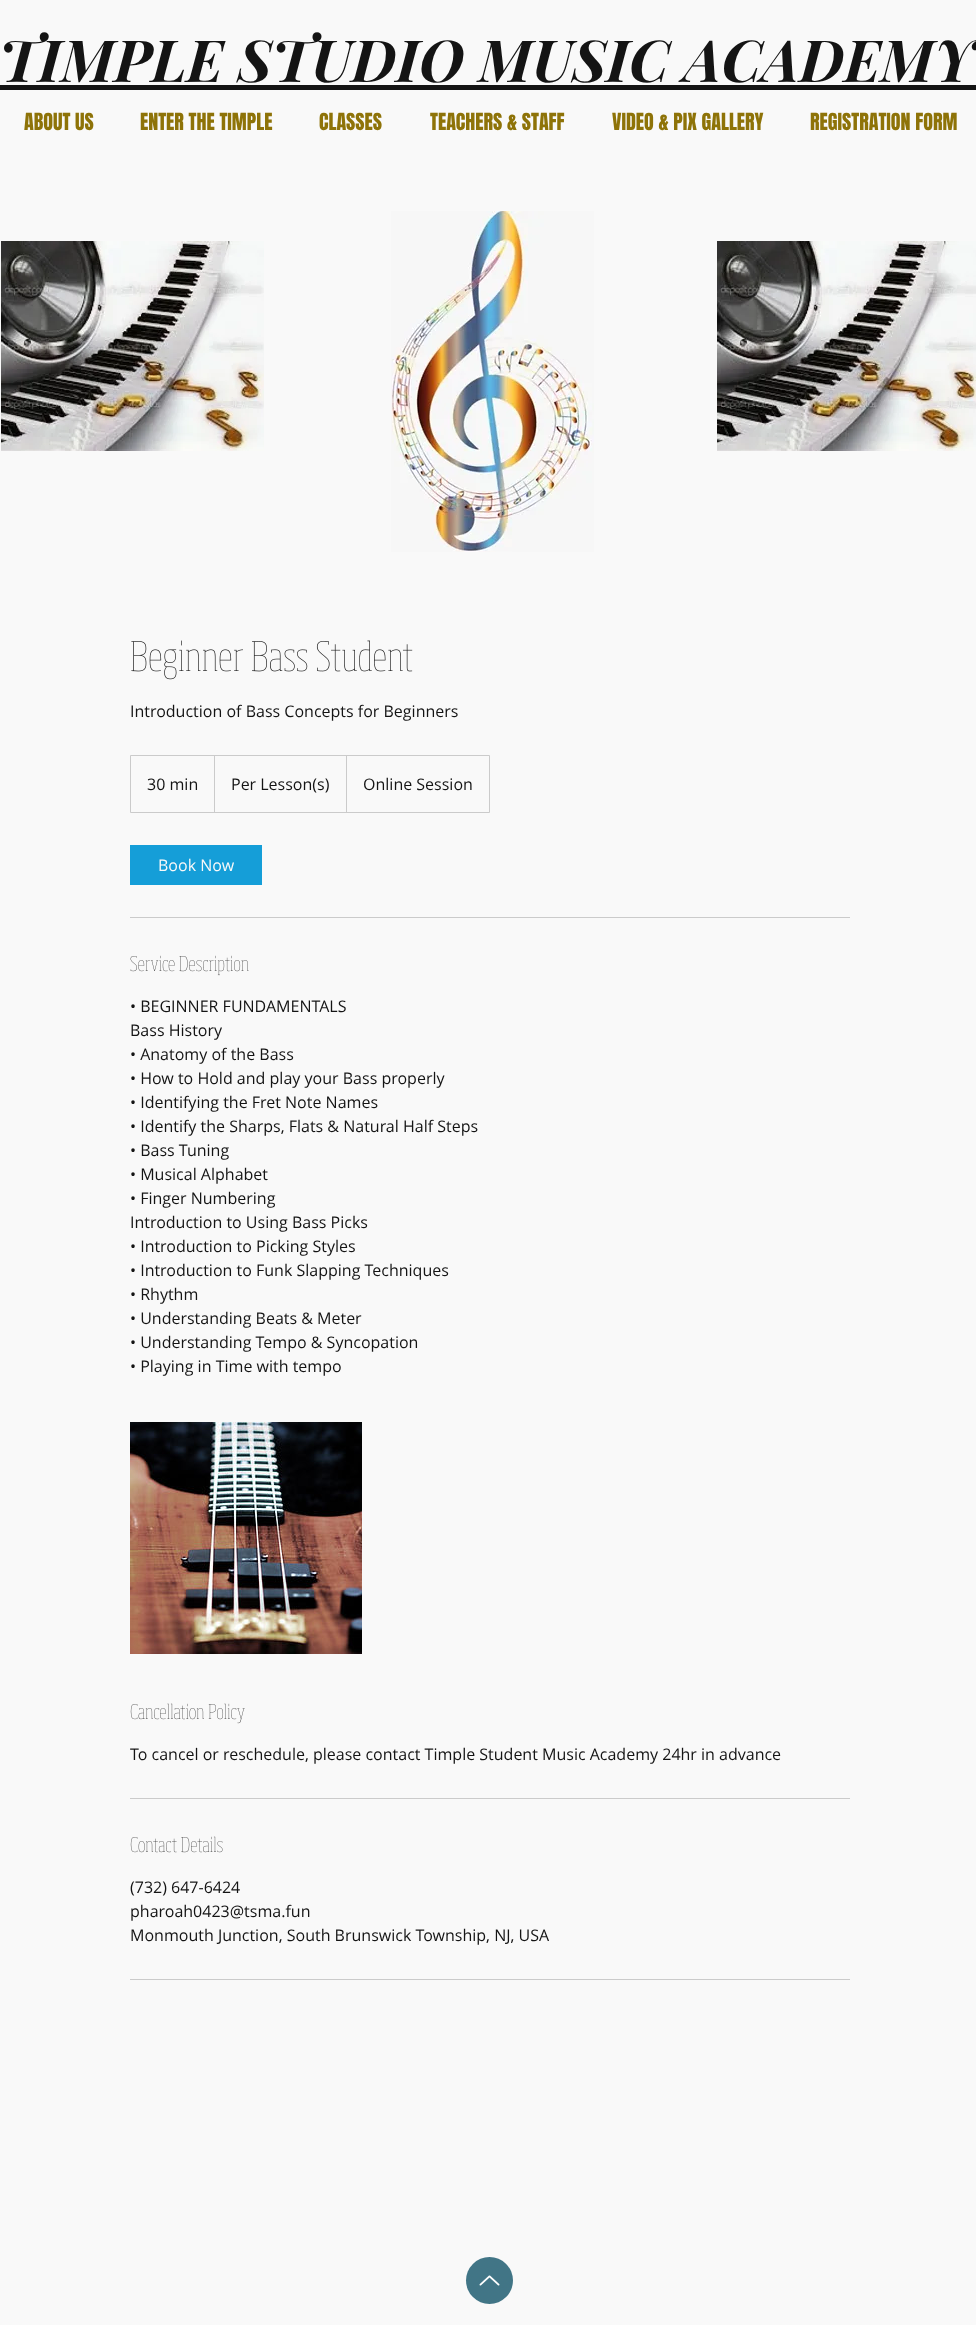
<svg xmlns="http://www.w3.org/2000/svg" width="976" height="2325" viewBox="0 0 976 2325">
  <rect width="100%" height="100%" fill="#f9f9f9"/>
  <path d="M0 85h976v5H0z" fill="#141414"/>
  <image x="1" y="241" width="263" height="210" href="img/1.png"/>
  <image x="391" y="211" width="203" height="341" href="img/2.png"/>
  <image x="717" y="241" width="259" height="210" href="img/3.png"/>
  <image x="131" y="640" width="282" height="40" href="img/4.png"/>
  <path d="M130.5 755.5h359v57H130.5z" fill="none" stroke="#cbcbcb"/>
  <path d="M214 812V755L215 756V812Z" fill="#cbcbcb"/>
  <path d="M346 812V755L347 756V812Z" fill="#cbcbcb"/>
  <path d="M130 845h132v40H130z" fill="#159ed8"/>
  <path d="M130 917h720v1H130z" fill="#cbcbcb"/>
  <image x="130" y="955" width="119" height="21" href="img/5.png"/>
  <image x="130" y="1422" width="232" height="232" href="img/6.png"/>
  <image x="130" y="1703" width="115" height="21" href="img/7.png"/>
  <path d="M130 1798h720v1H130z" fill="#cbcbcb"/>
  <image x="130" y="1836" width="93" height="17" href="img/8.png"/>
  <path d="M130 1979h720v1H130z" fill="#cbcbcb"/>
  <circle cx="489.5" cy="2280.5" r="23.5" fill="#417586"/>
  <image x="479" y="2275" width="21" height="11" href="img/9.png"/>
  <text x="-1" y="82" font-family="Playfair Display" font-size="58" font-weight="bold" font-style="italic" fill="#141414">TIMPLE STUDIO MUSIC ACADEMY</text>
  <g font-family="Anton" font-size="20" fill="#8e7308">
    <text x="24" y="130">ABOUT US</text>
    <text x="140" y="130">ENTER THE TIMPLE</text>
    <text x="319" y="130">CLASSES</text>
    <text x="430" y="130">TEACHERS &amp; STAFF</text>
    <text x="612" y="130">VIDEO &amp; PIX GALLERY</text>
    <text x="810" y="130">REGISTRATION FORM</text>
  </g>
  <g font-family="Open Sans" font-size="16" fill="#141414">
    <text x="130" y="717">Introduction of Bass Concepts for Beginners</text>
    <text x="147" y="790">30 min</text>
    <text x="231" y="790">Per Lesson(s)</text>
    <text x="363" y="790">Online Session</text>
  </g>
  <text x="158" y="871" font-family="Open Sans" font-size="16" fill="#f9f9f9">Book Now</text>
  <g font-family="Open Sans" font-size="16" fill="#141414">
    <text x="130" y="1012">• BEGINNER FUNDAMENTALS</text>
    <text x="130" y="1036"> Bass History</text>
    <text x="130" y="1060">• Anatomy of the Bass</text>
    <text x="130" y="1084">• How to Hold and play your Bass properly</text>
    <text x="130" y="1108">• Identifying the Fret Note Names</text>
    <text x="130" y="1132">• Identify the Sharps, Flats &amp; Natural Half Steps</text>
    <text x="130" y="1156">• Bass Tuning</text>
    <text x="130" y="1180">• Musical Alphabet</text>
    <text x="130" y="1204">• Finger Numbering</text>
    <text x="130" y="1228"> Introduction to Using Bass Picks</text>
    <text x="130" y="1252">• Introduction to Picking Styles</text>
    <text x="130" y="1276">• Introduction to Funk Slapping Techniques</text>
    <text x="130" y="1300">• Rhythm</text>
    <text x="130" y="1324">• Understanding Beats &amp; Meter</text>
    <text x="130" y="1348">• Understanding Tempo &amp; Syncopation</text>
    <text x="130" y="1372">• Playing in Time with tempo</text>
    <text x="130" y="1760">To cancel or reschedule, please contact Timple Student Music Academy 24hr in advance</text>
    <text x="130" y="1893">(732) 647-6424</text>
    <text x="130" y="1917">pharoah0423@tsma.fun</text>
    <text x="130" y="1941">Monmouth Junction, South Brunswick Township, NJ, USA</text>
  </g>
</svg>
